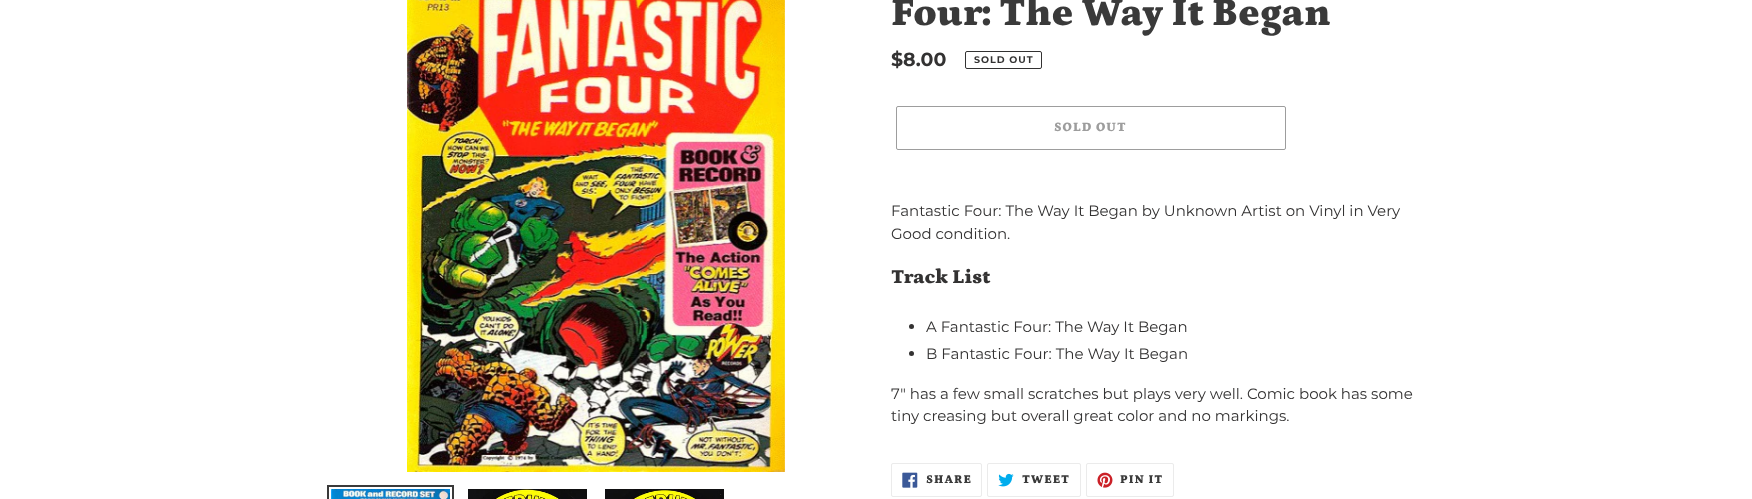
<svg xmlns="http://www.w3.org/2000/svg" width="1752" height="499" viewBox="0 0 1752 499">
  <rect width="100%" height="100%" fill="#fff"/>
  <image x="407" y="0" width="378" height="472" href="img/1.png"/>
  <path d="M328 486h125v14H328z" fill="none" stroke="#3a3a3a" stroke-width="2"/>
  <image x="331" y="489" width="119" height="10" href="img/2.png"/>
  <image x="468" y="489" width="119" height="10" href="img/3.png"/>
  <image x="605" y="489" width="119" height="10" href="img/4.png"/>
  <rect x="965.5" y="51.5" width="76" height="17" rx="1.5" fill="none" stroke="#333232"/>
  <rect x="896.5" y="106.5" width="389" height="43" rx="1.5" fill="none" stroke="#9d9d9d"/>
  <circle cx="911.5" cy="326.5" r="2.5" fill="#333232"/>
  <circle cx="911.5" cy="353.5" r="2.5" fill="#333232"/>
  <rect x="891.5" y="463.5" width="90" height="33" rx="1.5" fill="none" stroke="#ebebeb"/>
  <image x="902" y="472" width="16" height="16" href="img/5.png"/>
  <rect x="987.5" y="463.5" width="93" height="33" rx="1.5" fill="none" stroke="#ebebeb"/>
  <image x="998" y="473" width="16" height="14" href="img/6.png"/>
  <rect x="1086.5" y="463.5" width="87" height="33" rx="1.5" fill="none" stroke="#ebebeb"/>
  <image x="1097" y="472" width="16" height="16" href="img/7.png"/>
  <text x="891" y="25" font-family="Petrona" font-size="40" font-weight="900" fill="#3a3a3a">Four: The Way It Began</text>
  <text x="891" y="66" font-family="Montserrat" font-size="19" font-weight="bold" fill="#333232">$8.00</text>
  <text x="974" y="63" font-family="Montserrat" font-size="9.5" font-weight="bold" letter-spacing="1" fill="#333232">SOLD OUT</text>
  <text x="1054" y="131" font-family="Petrona" font-size="13" font-weight="900" letter-spacing="1" fill="#9d9d9d">SOLD OUT</text>
  <g font-family="Montserrat" font-size="15" fill="#333232">
    <text x="891" y="216">Fantastic Four: The Way It Began by Unknown Artist on Vinyl in Very</text>
    <text x="891" y="239">Good condition.</text>
  </g>
  <text x="891" y="283" font-family="Petrona" font-size="20" font-weight="900" fill="#333232">Track List</text>
  <g font-family="Montserrat" font-size="15" fill="#333232">
    <text x="926" y="332">A Fantastic Four: The Way It Began</text>
    <text x="926" y="359">B Fantastic Four: The Way It Began</text>
    <text x="891" y="399">7" has a few small scratches but plays very well. Comic book has some</text>
    <text x="891" y="421">tiny creasing but overall great color and no markings.</text>
  </g>
  <g font-family="Petrona" font-size="12" font-weight="900" letter-spacing="1" fill="#3a3a3a">
    <text x="926" y="483">SHARE</text>
    <text x="1022" y="483">TWEET</text>
    <text x="1120" y="483">PIN IT</text>
  </g>
</svg>
